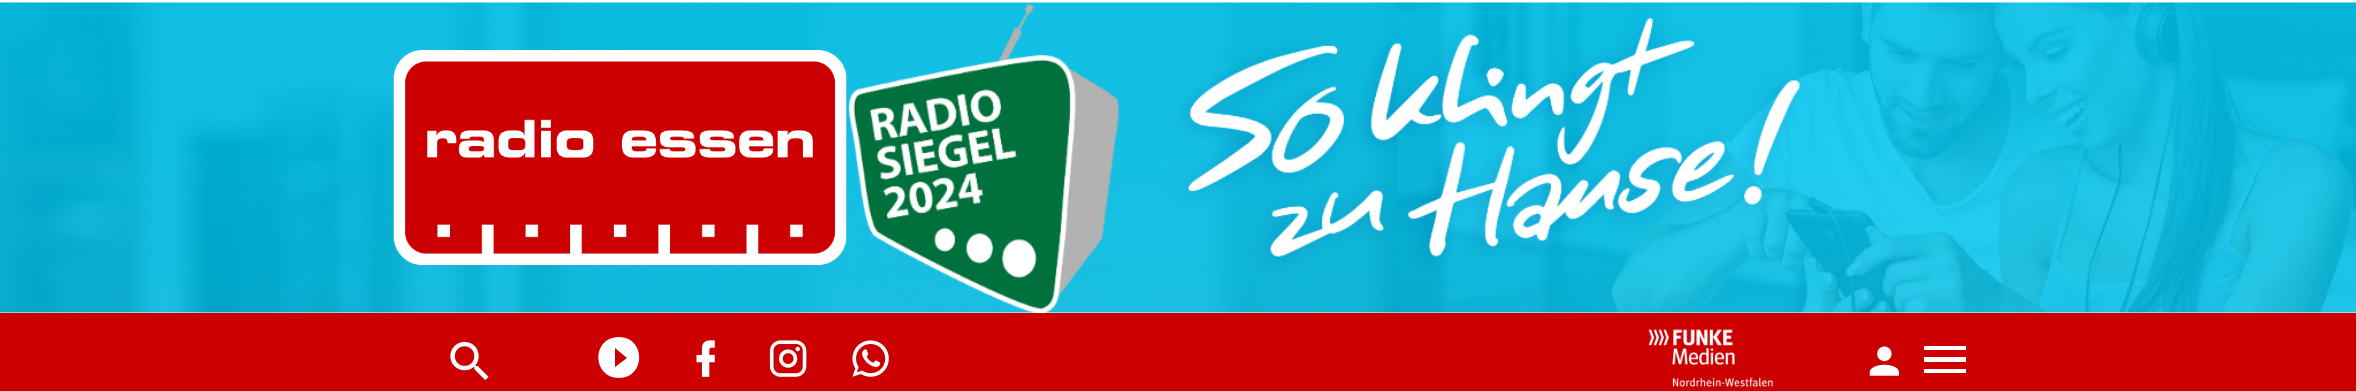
<svg xmlns="http://www.w3.org/2000/svg" width="2356" height="391" viewBox="0 0 2356 391">
  <rect width="100%" height="100%" fill="#c00"/>
  <path d="M0 0h2356v3H0z" fill="#fff"/>
  <path d="M0 312h2356v1H0z" fill="#fff"/>
  <image x="0" y="2" width="2356" height="311" href="img/1.png"/>
  <image x="393" y="50" width="454" height="215" href="img/2.png"/>
  <image x="450" y="341" width="39" height="39" href="img/3.png"/>
  <path d="M615 367V348L627 358ZM619 337C591 337 592 378 619 378C646 378 646 337 619 337Z" fill="#fff"/>
  <image x="696" y="340" width="19" height="37" href="img/4.png"/>
  <image x="769" y="340" width="38" height="37" href="img/5.png"/>
  <image x="852" y="340" width="37" height="37" href="img/6.png"/>
  <image x="1648" y="329" width="125" height="58" href="img/7.png"/>
  <image x="1869" y="346" width="30" height="30" href="img/8.png"/>
  <path d="M1924 346H1966V350H1924ZM1924 357H1966V362H1924ZM1924 369H1966V373H1924Z" fill="#fff"/>
</svg>
